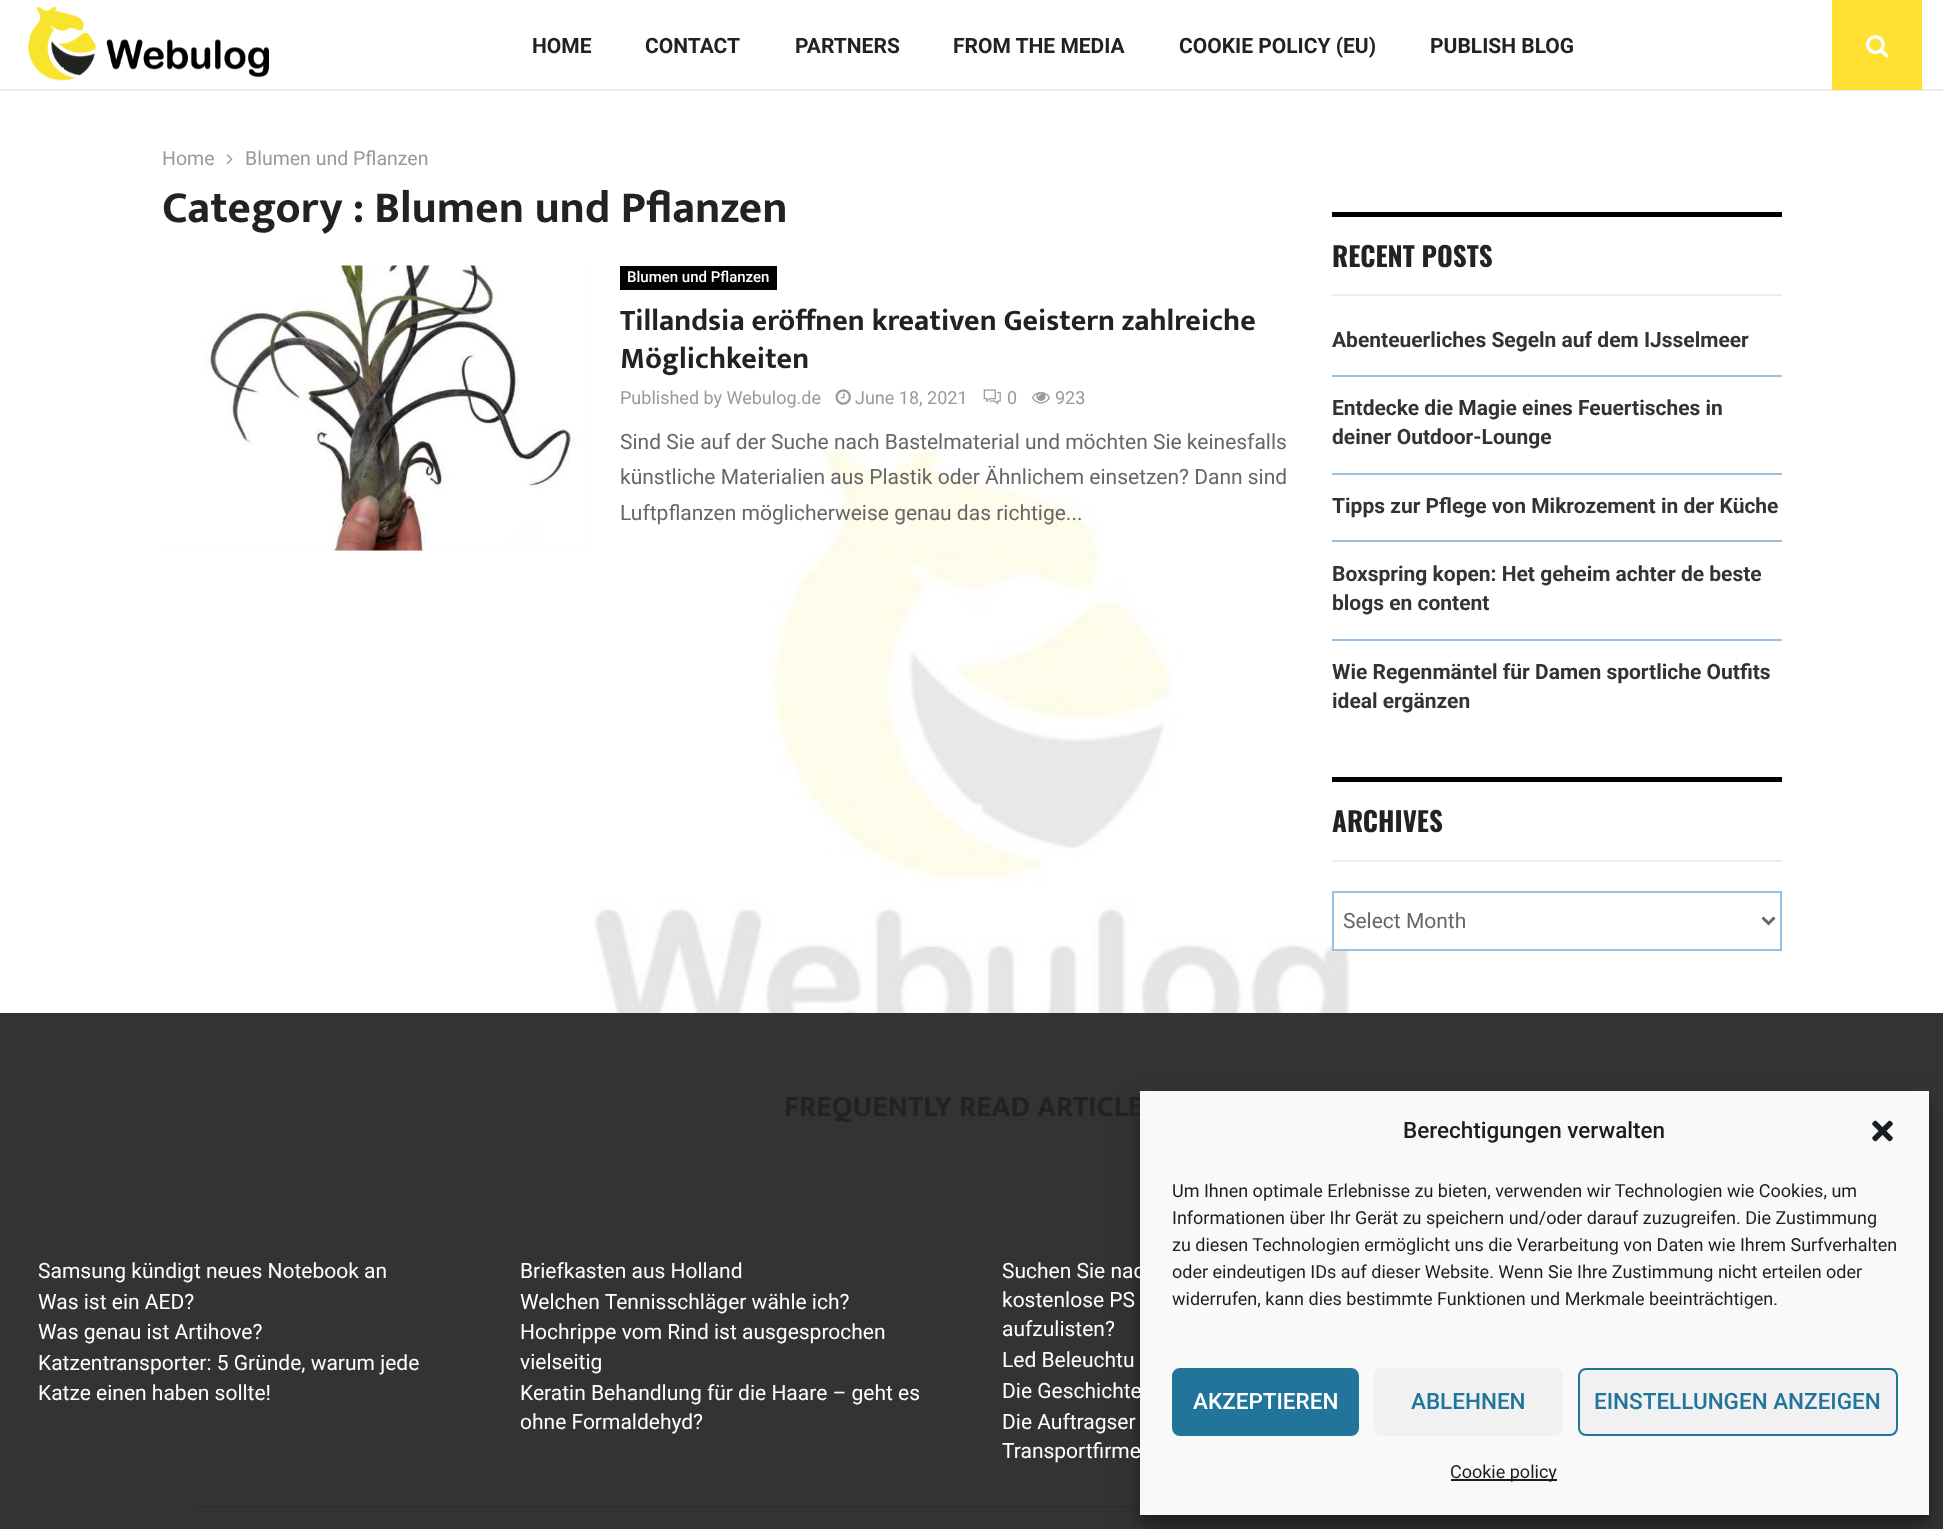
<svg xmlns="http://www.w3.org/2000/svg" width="1943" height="1529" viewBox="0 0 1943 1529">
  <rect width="100%" height="100%" fill="#fff"/>
  <image x="594" y="444" width="756" height="569" href="img/1.png"/>
  <path d="M0 89h1943v2H0z" fill="#ececec"/>
  <image x="28" y="6" width="241" height="75" href="img/2.png"/>
  <path d="M1832 0h90v90H1832z" fill="#ffe033"/>
  <image x="1866" y="35" width="23" height="23" href="img/3.png"/>
  <image x="226" y="154" width="7" height="11" href="img/4.png"/>
  <path d="M162 266h428v285H162z" fill="#f5f5f5"/>
  <image x="162" y="265" width="428" height="286" href="img/5.png"/>
  <path d="M620 266h157v24H620z" fill="#000"/>
  <image x="835" y="389" width="16" height="16" href="img/6.png"/>
  <image x="983" y="389" width="18" height="16" href="img/7.png"/>
  <image x="1032" y="392" width="18" height="12" href="img/8.png"/>
  <path d="M1332 294h450v2H1332z" fill="#ececec"/>
  <path d="M1332 212h450v5H1332z" fill="#000"/>
  <path d="M1332 375h450v2H1332z" fill="#99c0e1"/>
  <path d="M1332 473h450v2H1332z" fill="#99c0e1"/>
  <path d="M1332 540h450v2H1332z" fill="#99c0e1"/>
  <path d="M1332 639h450v2H1332z" fill="#99c0e1"/>
  <path d="M1332 860h450v2H1332z" fill="#ececec"/>
  <path d="M1332 777h450v5H1332z" fill="#000"/>
  <path d="M1334 941h13v8H1334z" fill="#fff"/>
  <path d="M1333 892h448v58H1333z" fill="none" stroke="#99c0e1" stroke-width="2"/>
  <path d="M1762.5 917.5L1768.5 923.5L1774.5 917.5" fill="none" stroke="#666" stroke-width="3"/>
  <path d="M0 1013h1943v174H0z" fill="#333"/>
  <path d="M0 1187h1943v342H0z" fill="#333"/>
  <path d="M195 1506h945v2H195z" fill="#2f2f2f"/>
  <path d="M1140 1100h789v424H1140z" fill="#0000003b" filter="blur(4.5px)"/>
  <path d="M1140 1106h789v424H1140z" fill="#00000030" filter="blur(15px)"/>
  <g font-family="Roboto" font-size="21" font-weight="bold" fill="#212322">
    <text x="532" y="53">HOME</text>
    <text x="645" y="53">CONTACT</text>
    <text x="795" y="53">PARTNERS</text>
    <text x="953" y="53">FROM THE MEDIA</text>
    <text x="1179" y="53">COOKIE POLICY (EU)</text>
    <text x="1430" y="53">PUBLISH BLOG</text>
  </g>
  <g font-family="Roboto" font-size="19.5" fill="#999">
    <text x="162" y="165">Home</text>
    <text x="245" y="165">Blumen und Pflanzen</text>
  </g>
  <text x="162" y="222" font-family="Mukta Vaani" font-size="45" font-weight="bold" fill="#212322">Category : Blumen und Pflanzen</text>
  <text x="627" y="282" font-family="Roboto" font-size="15" font-weight="500" fill="#fff">Blumen und Pflanzen</text>
  <g font-family="Mukta Vaani" font-size="30" font-weight="bold" fill="#212322">
    <text x="620" y="330">Tillandsia eröffnen kreativen Geistern zahlreiche</text>
    <text x="620" y="368">Möglichkeiten</text>
  </g>
  <g font-family="Roboto" font-size="18" fill="#999">
    <text x="620" y="404">Published by Webulog.de</text>
    <text x="855" y="404">June 18, 2021</text>
    <text x="1007" y="404">0</text>
    <text x="1055" y="404">923</text>
  </g>
  <g font-family="Roboto" font-size="21" fill="#666">
    <text x="620" y="449">Sind Sie auf der Suche nach Bastelmaterial und möchten Sie keinesfalls</text>
    <text x="620" y="484">künstliche Materialien aus Plastik oder Ähnlichem einsetzen? Dann sind</text>
    <text x="620" y="520">Luftpflanzen möglicherweise genau das richtige...</text>
  </g>
  <text x="1332" y="267" font-family="Oswald" font-size="27" font-weight="bold" fill="#212322">RECENT POSTS</text>
  <g font-family="Roboto" font-size="21" font-weight="bold" fill="#333">
    <text x="1332" y="347">Abenteuerliches Segeln auf dem IJsselmeer</text>
    <text x="1332" y="415">Entdecke die Magie eines Feuertisches in</text>
    <text x="1332" y="444">deiner Outdoor-Lounge</text>
    <text x="1332" y="513">Tipps zur Pflege von Mikrozement in der Küche</text>
    <text x="1332" y="581">Boxspring kopen: Het geheim achter de beste</text>
    <text x="1332" y="610">blogs en content</text>
    <text x="1332" y="679">Wie Regenmäntel für Damen sportliche Outfits</text>
    <text x="1332" y="708">ideal ergänzen</text>
  </g>
  <text x="1332" y="832" font-family="Oswald" font-size="27" font-weight="bold" fill="#212322">ARCHIVES</text>
  <text x="1343" y="928" font-family="Roboto" font-size="21" fill="#666">Select Month</text>
  <text x="784" y="1116" font-family="Mukta Vaani" font-size="30" font-weight="bold" fill="#212322">FREQUENTLY READ ARTICLE</text>
  <g font-family="Roboto" font-size="21" fill="#fff">
    <text x="38" y="1278">Samsung kündigt neues Notebook an</text>
    <text x="38" y="1309">Was ist ein AED?</text>
    <text x="38" y="1339">Was genau ist Artihove?</text>
    <text x="38" y="1370">Katzentransporter: 5 Gründe, warum jede</text>
    <text x="38" y="1400">Katze einen haben sollte!</text>
    <text x="520" y="1278">Briefkasten aus Holland</text>
    <text x="520" y="1309">Welchen Tennisschläger wähle ich?</text>
    <text x="520" y="1339">Hochrippe vom Rind ist ausgesprochen</text>
    <text x="520" y="1369">vielseitig</text>
    <text x="520" y="1400">Keratin Behandlung für die Haare – geht es</text>
    <text x="520" y="1429">ohne Formaldehyd?</text>
    <text x="1002" y="1278">Suchen Sie nac</text>
    <text x="1002" y="1307">kostenlose PS</text>
    <text x="1002" y="1336">aufzulisten?</text>
    <text x="1002" y="1367">Led Beleuchtu</text>
    <text x="1002" y="1398">Die Geschichte</text>
    <text x="1002" y="1429">Die Auftragser</text>
    <text x="1002" y="1458">Transportfirme</text>
  </g>
  <path d="M1140 1091h789v424H1140z" fill="#f9f9f9"/>
  <text x="1403" y="1138" font-family="Roboto" font-size="22.5" font-weight="500" fill="#191e23">Berechtigungen verwalten</text>
  <image x="1872" y="1120" width="21" height="22" href="img/9.png"/>
  <g font-family="Roboto" font-size="18" fill="#191e23">
    <text x="1172" y="1197">Um Ihnen optimale Erlebnisse zu bieten, verwenden wir Technologien wie Cookies, um</text>
    <text x="1172" y="1224">Informationen über Ihr Gerät zu speichern und/oder darauf zuzugreifen. Die Zustimmung</text>
    <text x="1172" y="1251">zu diesen Technologien ermöglicht uns die Verarbeitung von Daten wie Ihrem Surfverhalten</text>
    <text x="1172" y="1278">oder eindeutigen IDs auf dieser Website. Wenn Sie Ihre Zustimmung nicht erteilen oder</text>
    <text x="1172" y="1305">widerrufen, kann dies bestimmte Funktionen und Merkmale beeinträchtigen.</text>
  </g>
  <rect x="1173" y="1369" width="185" height="66" rx="7" fill="#21759b" stroke="#21759b" stroke-width="2"/>
  <text x="1193" y="1409" font-family="Roboto" font-size="22.5" font-weight="500" fill="#fff">AKZEPTIEREN</text>
  <rect x="1374" y="1368" width="189" height="68" rx="8" fill="#f1f1f1"/>
  <text x="1411" y="1409" font-family="Roboto" font-size="22.5" font-weight="500" fill="#21759b">ABLEHNEN</text>
  <rect x="1579" y="1369" width="318" height="66" rx="7" fill="#f1f1f1" stroke="#21759b" stroke-width="2"/>
  <text x="1594" y="1409" font-family="Roboto" font-size="22.5" font-weight="500" fill="#21759b">EINSTELLUNGEN ANZEIGEN</text>
  <path d="M1451 1479h106v2H1451z" fill="#191e23"/>
  <text x="1450" y="1478" font-family="Roboto" font-size="18" fill="#191e23">Cookie policy</text>
</svg>
